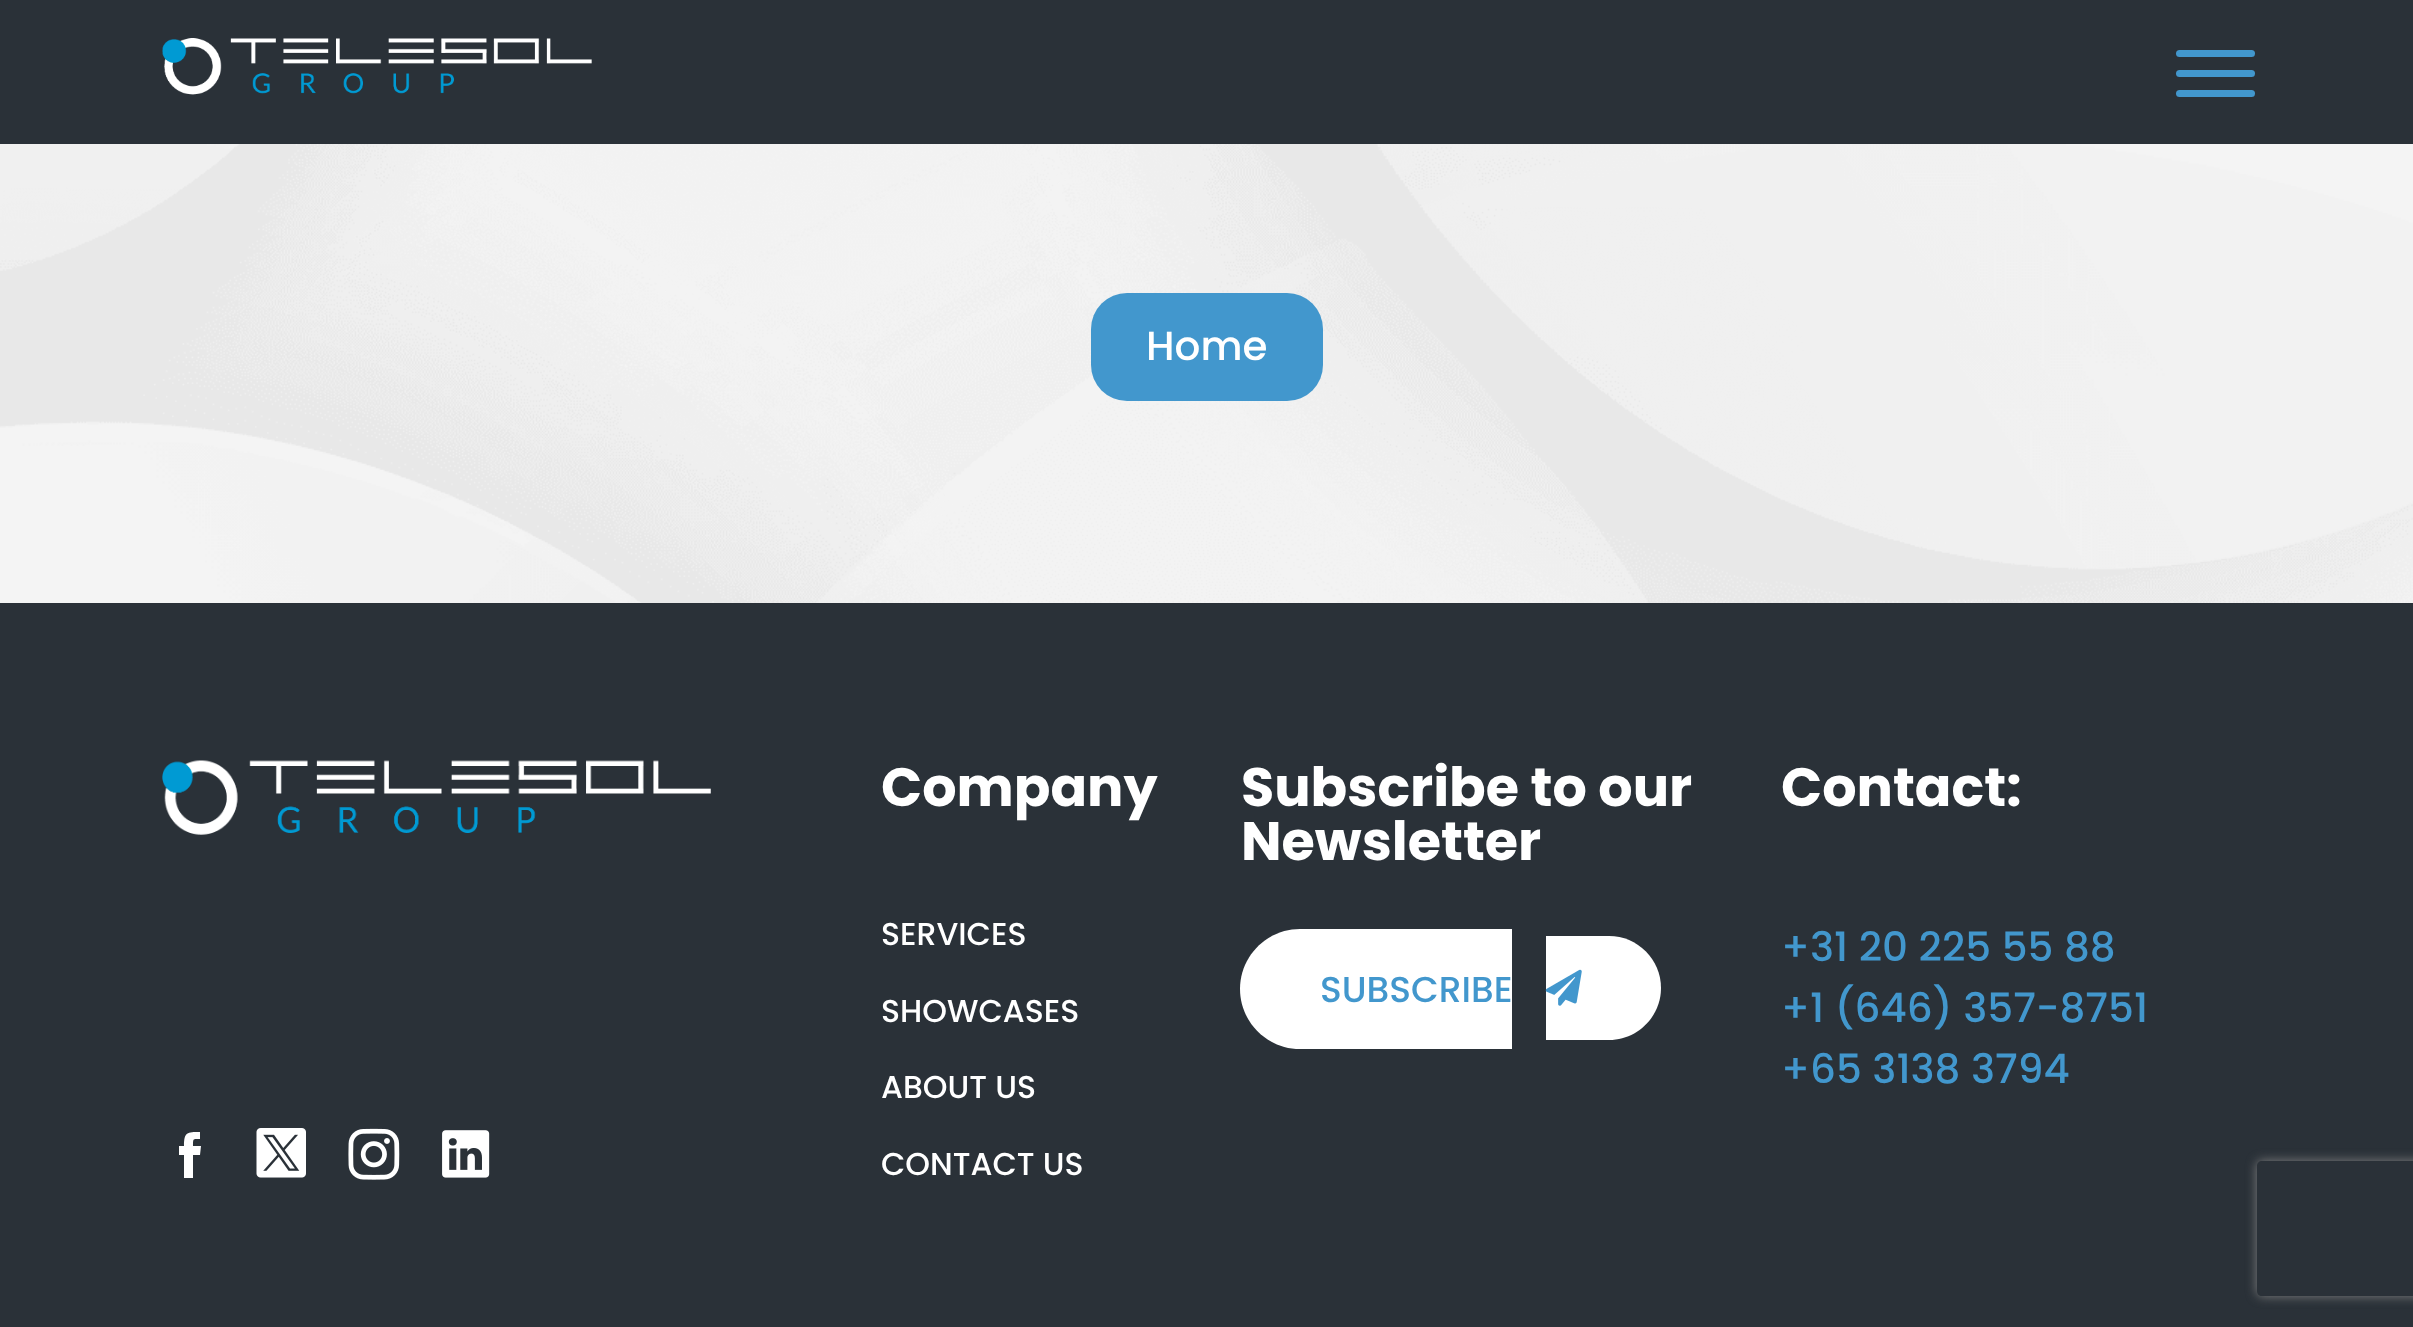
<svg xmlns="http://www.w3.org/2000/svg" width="2413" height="1327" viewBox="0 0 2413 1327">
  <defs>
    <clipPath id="clip1"><path d="M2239 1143H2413V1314H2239ZM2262 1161H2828C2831 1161 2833 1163 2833 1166V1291C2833 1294 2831 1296 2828 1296H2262C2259 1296 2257 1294 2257 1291V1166C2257 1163 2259 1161 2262 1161Z" clip-rule="evenodd"/></clipPath>
  </defs>
  <rect width="100%" height="100%" fill="#f2f2f2"/>
  <path d="M0 0h2413v144H0z" fill="#2a3138"/>
  <image x="162" y="38" width="430" height="57" href="img/1.png"/>
  <rect x="2176" y="50" width="79" height="7" rx="3.5" fill="#4297cd"/>
  <rect x="2176" y="70" width="79" height="7" rx="3.5" fill="#4297cd"/>
  <rect x="2176" y="90" width="79" height="7" rx="3.5" fill="#4297cd"/>
  <image x="0" y="144" width="2413" height="459" href="img/2.png"/>
  <rect x="1091" y="293" width="232" height="108" rx="36" fill="#4297cd"/>
  <path d="M0 603h2413v724H0z" fill="#2a3138"/>
  <image x="162" y="760" width="549" height="75" href="img/3.png"/>
  <path d="M201 1146H193C193 1138 193 1139 200 1139V1132C187 1132 184 1132 184 1146H179V1155H184V1178H193V1155H200Z" fill="#fff"/>
  <image x="256" y="1128" width="50" height="50" href="img/4.png"/>
  <image x="348" y="1128" width="52" height="52" href="img/5.png"/>
  <image x="442" y="1130" width="48" height="48" href="img/6.png"/>
  <path d="M1300 929H1512V1049H1300C1267 1049 1240 1022 1240 989C1240 956 1267 929 1300 929Z" fill="#fff"/>
  <path d="M1546 936H1609C1637.5 936 1661 959.5 1661 988C1661 1016.5 1637.5 1040 1609 1040H1546Z" fill="#fff"/>
  <image x="1545" y="969" width="37" height="37" href="img/7.png"/>
  <g clip-path="url(#clip1)">
    <rect x="2257" y="1161" width="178" height="135" rx="5" fill="#808080" filter="blur(5.5px)"/>
  </g>
  <text x="1146" y="360" font-family="Poppins" font-size="40.5" font-weight="500" fill="#fff">Home</text>
  <text x="881" y="806" font-family="Poppins" font-size="54" font-weight="bold" fill="#fff">Company</text>
  <g font-family="Poppins" font-size="31.5" font-weight="500" fill="#fff">
    <text x="881" y="945">SERVICES</text>
    <text x="881" y="1022">SHOWCASES</text>
    <text x="881" y="1098">ABOUT US</text>
    <text x="881" y="1175">CONTACT US</text>
  </g>
  <g font-family="Poppins" font-size="54" font-weight="bold" fill="#fff">
    <text x="1241" y="806">Subscribe to our</text>
    <text x="1241" y="860">Newsletter</text>
  </g>
  <text x="1320" y="1002" font-family="Poppins" font-size="36" font-weight="500" fill="#4297cd">SUBSCRIBE</text>
  <text x="1781" y="806" font-family="Poppins" font-size="54" font-weight="bold" fill="#fff">Contact:</text>
  <g font-family="Poppins" font-size="40.5" font-weight="500" fill="#4297cd">
    <text x="1781" y="961">+31 20 225 55 88</text>
    <text x="1781" y="1022">+1 (646) 357-8751</text>
    <text x="1781" y="1083">+65 3138 3794</text>
  </g>
</svg>
